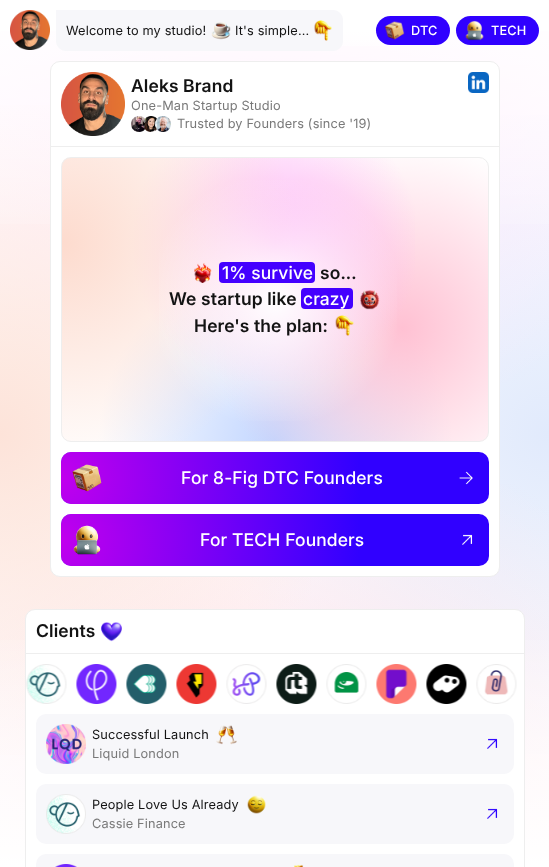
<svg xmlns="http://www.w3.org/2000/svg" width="549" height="867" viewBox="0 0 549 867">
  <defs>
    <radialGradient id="g1" gradientUnits="userSpaceOnUse" cx="549" cy="434" r="700"><stop offset="0" stop-color="#e1eafc"/><stop offset="0.5" stop-color="#fff"/></radialGradient>
    <radialGradient id="g2" gradientUnits="userSpaceOnUse" cx="275" cy="867" r="909"><stop offset="0" stop-color="#fddee7"/><stop offset="0.5" stop-color="#fddee7" stop-opacity="0"/></radialGradient>
    <radialGradient id="g3" gradientUnits="userSpaceOnUse" cx="275" cy="0" r="909"><stop offset="0" stop-color="#ffdffb"/><stop offset="0.5" stop-color="#ffdffb" stop-opacity="0"/></radialGradient>
    <radialGradient id="g4" gradientUnits="userSpaceOnUse" cx="0" cy="434" r="700"><stop offset="0" stop-color="#fde3d9"/><stop offset="0.5" stop-color="#fde3d9" stop-opacity="0"/></radialGradient>
    <linearGradient id="g5" gradientUnits="userSpaceOnUse" x1="274" y1="0" x2="275" y2="867"><stop offset="0.7" stop-color="#fff" stop-opacity="0"/><stop offset="1" stop-color="#fff"/></linearGradient>
    <linearGradient id="g6" gradientUnits="userSpaceOnUse" x1="274" y1="0" x2="275" y2="867"><stop offset="0" stop-color="#fff"/><stop offset="0.3" stop-color="#fff" stop-opacity="0"/></linearGradient>
    <linearGradient id="g7" gradientUnits="userSpaceOnUse" x1="275" y1="0" x2="275" y2="61"><stop offset="0.5" stop-color="#fff"/><stop offset="1" stop-color="#fff" stop-opacity="0"/></linearGradient>
    <clipPath id="clip1"><rect x="61" y="157" width="428" height="285" rx="10"/></clipPath>
    <radialGradient id="g8" gradientUnits="userSpaceOnUse" cx="275" cy="441" r="354"><stop offset="0" stop-color="#c2d6ff"/><stop offset="0.5" stop-color="#fff"/></radialGradient>
    <radialGradient id="g9" gradientUnits="userSpaceOnUse" cx="403" cy="328" r="381"><stop offset="0" stop-color="#ffc1d3"/><stop offset="0.5" stop-color="#ffc1d3" stop-opacity="0"/></radialGradient>
    <radialGradient id="g10" gradientUnits="userSpaceOnUse" cx="275" cy="243" r="291"><stop offset="0" stop-color="#fdb1f4"/><stop offset="0.5" stop-color="#fdb1f4" stop-opacity="0"/></radialGradient>
    <radialGradient id="g11" gradientUnits="userSpaceOnUse" cx="62" cy="243" r="470"><stop offset="0" stop-color="#fddbce"/><stop offset="0.5" stop-color="#fddbce" stop-opacity="0"/></radialGradient>
    <radialGradient id="g12" gradientUnits="userSpaceOnUse" cx="275" cy="300" r="256"><stop offset="0" stop-color="#fff"/><stop offset="0.5" stop-color="#fff" stop-opacity="0"/></radialGradient>
    <radialGradient id="g13" gradientUnits="userSpaceOnUse" cx="61" cy="478" r="429"><stop offset="0" stop-color="#ff00e6" stop-opacity="0.7"/><stop offset="0.7" stop-color="#ff00e6" stop-opacity="0"/></radialGradient>
    <radialGradient id="g14" gradientUnits="userSpaceOnUse" cx="61" cy="540" r="429"><stop offset="0" stop-color="#ff00e6" stop-opacity="0.7"/><stop offset="0.7" stop-color="#ff00e6" stop-opacity="0"/></radialGradient>
  </defs>
  <rect width="100%" height="100%" fill="#fff"/>
  <path d="M228 115h321v639H228z" fill="url(#g1)"/>
  <path d="M0 484h549v382H0z" fill="url(#g2)"/>
  <path d="M0 31h549v352H0z" fill="url(#g3)"/>
  <path d="M0 105h311v650H0z" fill="url(#g4)"/>
  <path d="M0 640h549v226H0z" fill="url(#g5)"/>
  <path d="M0 31h549v193H0z" fill="url(#g6)"/>
  <path d="M139 31h272v15H139z" fill="url(#g7)"/>
  <image x="10" y="10" width="40" height="40" href="img/1.png"/>
  <path d="M56 10H333C338.5 10 343 14.5 343 20V41C343 46.5 338.5 51 333 51H66C60.5 51 56 46.5 56 41Z" fill="#f7f7fa"/>
  <image x="211" y="22" width="20" height="18" href="img/2.png"/>
  <image x="314" y="20" width="18" height="21" href="img/3.png"/>
  <rect x="376" y="16" width="74" height="29" rx="14.5" fill="#3000ff"/>
  <image x="384" y="21" width="21" height="19" href="img/4.png"/>
  <rect x="456" y="16" width="83" height="29" rx="14.5" fill="#3000ff"/>
  <image x="465" y="20" width="19" height="21" href="img/5.png"/>
  <rect x="50.5" y="61.5" width="449" height="515" rx="9.5" fill="#fff" stroke="#eee"/>
  <image x="61" y="72" width="64" height="64" href="img/6.png"/>
  <image x="131" y="116" width="40" height="16" href="img/7.png"/>
  <image x="468" y="72" width="21" height="21" href="img/8.png"/>
  <path d="M51 146h448v1H51z" fill="#eee"/>
  <g clip-path="url(#clip1)">
    <path d="M62 158h426v283H62z" fill="url(#g8)"/>
    <path d="M217 158h271v283H217z" fill="url(#g9)"/>
  </g>
  <path d="M134 158h281v223H134z" fill="url(#g10)"/>
  <g clip-path="url(#clip1)">
    <path d="M62 158h230v283H62z" fill="url(#g11)"/>
  </g>
  <path d="M159 180h238v241H159z" fill="url(#g12)"/>
  <rect x="61.5" y="157.5" width="427" height="284" rx="9.5" fill="none" stroke="#eee"/>
  <image x="194" y="263" width="18" height="20" href="img/9.png"/>
  <rect x="219" y="262" width="96" height="21" rx="4" fill="#40f"/>
  <rect x="301" y="288" width="52" height="21" rx="4" fill="#40f"/>
  <image x="360" y="290" width="20" height="20" href="img/10.png"/>
  <image x="335" y="315" width="19" height="21" href="img/11.png"/>
  <rect x="61" y="452" width="428" height="52" rx="10" fill="#3000ff"/>
  <rect x="61" y="452" width="428" height="52" rx="10" fill="url(#g13)"/>
  <image x="72" y="464" width="30" height="28" href="img/12.png"/>
  <image x="459" y="471" width="14" height="14" href="img/13.png"/>
  <rect x="61" y="514" width="428" height="52" rx="10" fill="#3000ff"/>
  <rect x="61" y="514" width="428" height="52" rx="10" fill="url(#g14)"/>
  <image x="73" y="525" width="28" height="30" href="img/14.png"/>
  <image x="462" y="534" width="11" height="11" href="img/15.png"/>
  <rect x="25.5" y="609.5" width="499" height="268" rx="9.5" fill="#fff" stroke="#eee"/>
  <image x="101" y="622" width="21" height="20" href="img/16.png"/>
  <path d="M26 653h498v1H26z" fill="#eee"/>
  <image x="26" y="664" width="41" height="40" href="img/17.png"/>
  <image x="76" y="664" width="41" height="40" href="img/18.png"/>
  <image x="126" y="664" width="41" height="40" href="img/19.png"/>
  <image x="176" y="664" width="41" height="40" href="img/20.png"/>
  <image x="226" y="664" width="41" height="40" href="img/21.png"/>
  <image x="276" y="664" width="41" height="40" href="img/22.png"/>
  <image x="326" y="664" width="41" height="40" href="img/23.png"/>
  <image x="376" y="664" width="41" height="40" href="img/24.png"/>
  <image x="426" y="664" width="41" height="40" href="img/25.png"/>
  <image x="476" y="664" width="41" height="40" href="img/26.png"/>
  <rect x="36" y="714" width="478" height="60" rx="10" fill="#f7f7fa"/>
  <image x="46" y="724" width="40" height="40" href="img/27.png"/>
  <image x="216" y="725" width="21" height="20" href="img/28.png"/>
  <image x="487" y="738" width="11" height="11" href="img/29.png"/>
  <rect x="36" y="784" width="478" height="60" rx="10" fill="#f7f7fa"/>
  <image x="46" y="794" width="40" height="40" href="img/30.png"/>
  <image x="247" y="795" width="19" height="19" href="img/31.png"/>
  <image x="487" y="808" width="11" height="11" href="img/29.png"/>
  <rect x="36" y="854" width="478" height="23" rx="10" fill="#f7f7fa"/>
  <image x="55" y="864" width="22" height="3" href="img/32.png"/>
  <image x="294" y="864" width="10" height="3" href="img/33.png"/>
  <g font-family="Inter" font-size="12.75" letter-spacing="0.15" fill="#131313">
    <text x="66" y="35">Welcome to my studio!</text>
    <text x="235" y="35">It's simple...</text>
  </g>
  <g font-family="'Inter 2'" font-size="12.75" font-weight="500" letter-spacing="0.15" fill="#fff">
    <text x="411" y="35">DTC</text>
    <text x="491" y="35">TECH</text>
  </g>
  <text x="131" y="92" font-family="Inter" font-size="17.6" font-weight="600" letter-spacing="0.15" fill="#131313">Aleks Brand</text>
  <g font-family="Inter" font-size="12.75" letter-spacing="0.15" fill="#797979">
    <text x="131" y="110">One-Man Startup Studio</text>
    <text x="177" y="128">Trusted by Founders (since '19)</text>
  </g>
  <text x="222" y="279" font-family="Inter" font-size="17.6" font-weight="500" letter-spacing="0.15" fill="#fff">1% survive</text>
  <g font-family="Inter" font-size="17.6" font-weight="600" letter-spacing="0.15" fill="#131313">
    <text x="320" y="279">so...</text>
    <text x="169" y="305">We startup like</text>
  </g>
  <text x="303" y="305" font-family="Inter" font-size="17.6" font-weight="500" letter-spacing="0.15" fill="#fff">crazy</text>
  <text x="194" y="332" font-family="Inter" font-size="17.6" font-weight="600" letter-spacing="0.15" fill="#131313">Here's the plan:</text>
  <g font-family="Inter" font-size="17.6" font-weight="500" letter-spacing="0.15" fill="#fff">
    <text x="181" y="484">For 8-Fig DTC Founders</text>
    <text x="200" y="546">For TECH Founders</text>
  </g>
  <text x="36" y="637" font-family="Inter" font-size="17.6" font-weight="600" letter-spacing="0.15" fill="#131313">Clients</text>
  <text x="92" y="739" font-family="Inter" font-size="12.75" letter-spacing="0.15" fill="#131313">Successful Launch</text>
  <text x="92" y="758" font-family="Inter" font-size="12.75" letter-spacing="0.15" fill="#797979">Liquid London</text>
  <text x="92" y="809" font-family="Inter" font-size="12.75" letter-spacing="0.15" fill="#131313">People Love Us Already</text>
  <text x="92" y="828" font-family="Inter" font-size="12.75" letter-spacing="0.15" fill="#797979">Cassie Finance</text>
</svg>
